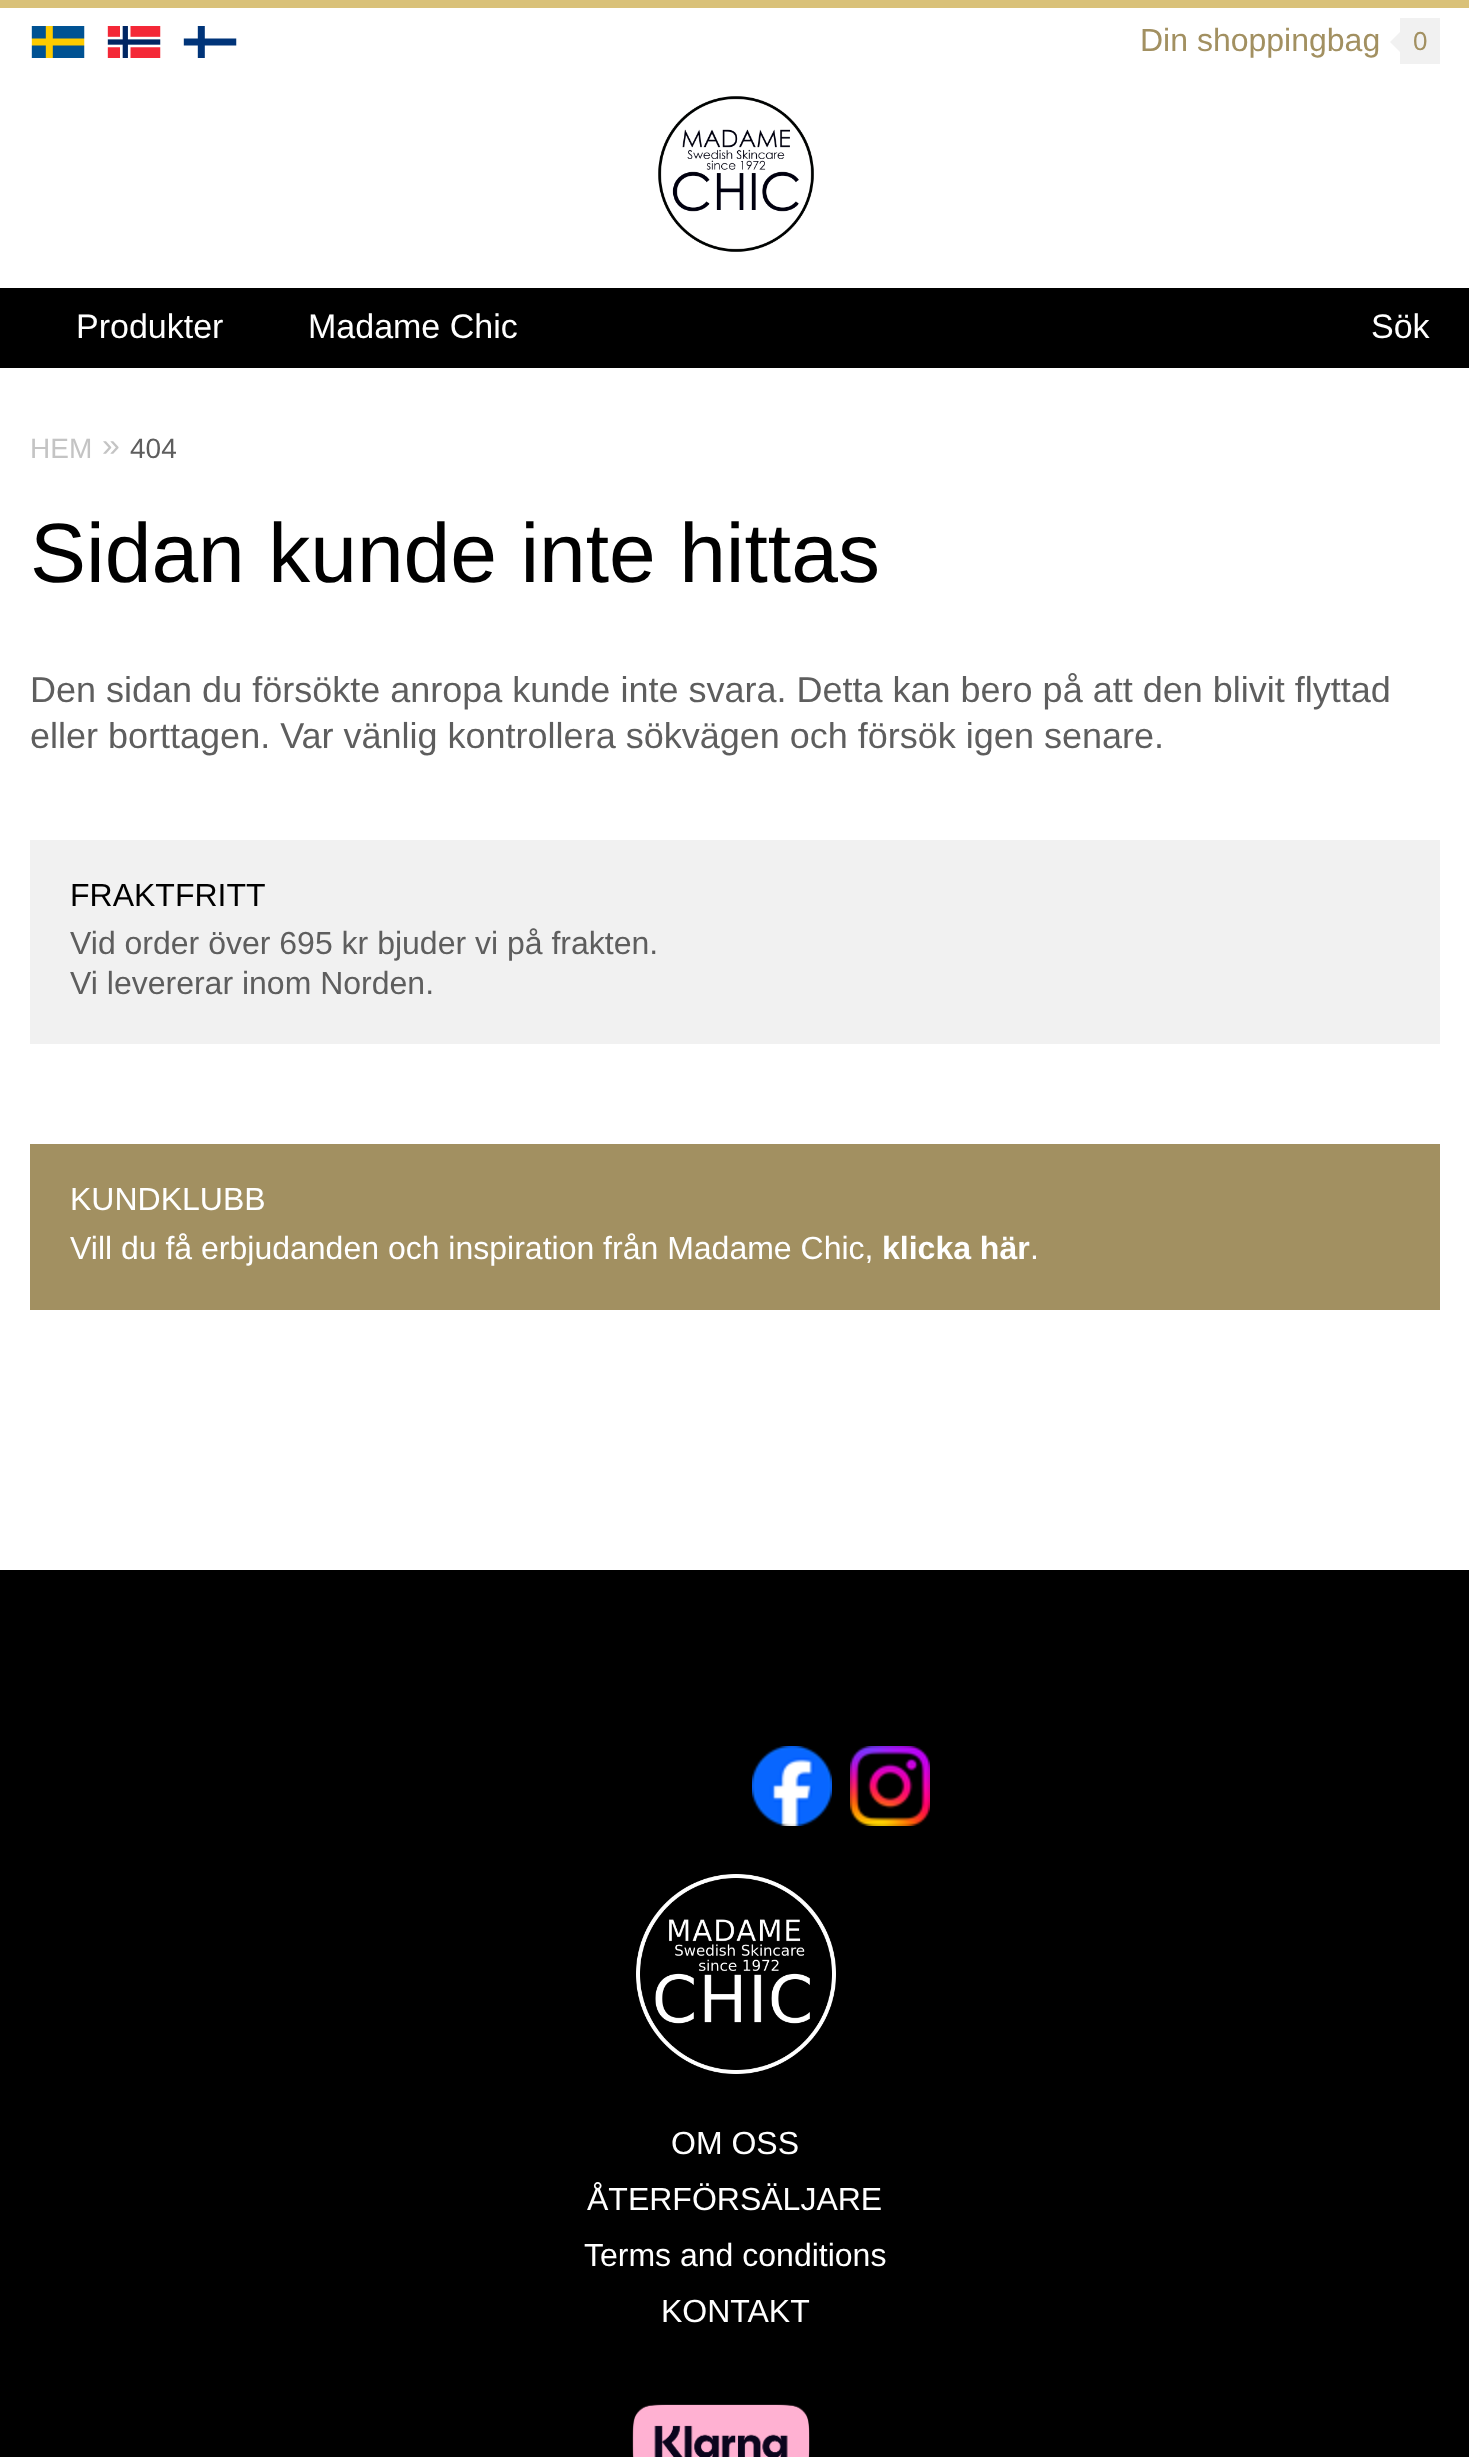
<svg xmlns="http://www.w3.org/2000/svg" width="1469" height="2457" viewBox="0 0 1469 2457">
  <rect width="100%" height="100%" fill="#fff"/>
  <path d="M0 0h1469v8H0z" fill="#d9c179"/>
  <image x="31" y="26" width="54" height="32" href="img/1.png"/>
  <image x="107" y="26" width="54" height="32" href="img/2.png"/>
  <image x="183" y="26" width="54" height="32" href="img/3.png"/>
  <path d="M1400 18h40v46H1400z" fill="#f1f1f1"/>
  <path d="M1400 32V52L1390 42Z" fill="#f1f1f1"/>
  <image x="658" y="96" width="156" height="156" href="img/4.png"/>
  <path d="M0 288h1469v80H0z" fill="#000"/>
  <path d="M30 840h1410v204H30z" fill="#f1f1f1"/>
  <path d="M30 1144h1410v166H30z" fill="#a29061"/>
  <path d="M0 1570h1469v887H0z" fill="#000"/>
  <image x="752" y="1746" width="80" height="80" href="img/5.png"/>
  <image x="850" y="1746" width="80" height="80" href="img/6.png"/>
  <image x="636" y="1874" width="200" height="200" href="img/7.png"/>
  <image x="632" y="2404" width="178" height="53" href="img/8.png"/>
  <text x="1140" y="51" font-family="Liberation Sans" font-size="32" fill="#a29061">Din shoppingbag</text>
  <text x="1413" y="50" font-family="Liberation Sans" font-size="26" fill="#a29061">0</text>
  <g font-family="Liberation Sans" font-size="34" fill="#fff">
    <text x="76" y="338">Produkter</text>
    <text x="308" y="338">Madame Chic</text>
    <text x="1371" y="338">Sök</text>
  </g>
  <text x="30" y="458" font-family="Liberation Sans" font-size="28" fill="#c4c4c4">HEM</text>
  <text x="102" y="456" font-family="Liberation Sans" font-size="32" fill="#c4c4c4">»</text>
  <text x="130" y="458" font-family="Liberation Sans" font-size="28" fill="#5e5e5e">404</text>
  <text x="30" y="582" font-family="Liberation Sans" font-size="84" fill="#000">Sidan kunde inte hittas</text>
  <g font-family="Liberation Sans" font-size="36" fill="#5e5e5e">
    <text x="30" y="702">Den sidan du försökte anropa kunde inte svara. Detta kan bero på att den blivit flyttad</text>
    <text x="30" y="748">eller borttagen. Var vänlig kontrollera sökvägen och försök igen senare.</text>
  </g>
  <text x="70" y="906" font-family="Liberation Sans" font-size="32" fill="#000">FRAKTFRITT</text>
  <g font-family="Liberation Sans" font-size="32" fill="#5e5e5e">
    <text x="70" y="954">Vid order över 695 kr bjuder vi på frakten.</text>
    <text x="70" y="994">Vi levererar inom Norden.</text>
  </g>
  <g font-family="Liberation Sans" font-size="32" fill="#fff">
    <text x="70" y="1210">KUNDKLUBB</text>
    <text x="70" y="1259">Vill du få erbjudanden och inspiration från Madame Chic,</text>
  </g>
  <text x="882" y="1259" font-family="Liberation Sans" font-size="32" font-weight="bold" fill="#fff">klicka här</text>
  <g font-family="Liberation Sans" font-size="32" fill="#fff">
    <text x="1030" y="1259">.</text>
    <text x="671" y="2154">OM OSS</text>
    <text x="587" y="2210">ÅTERFÖRSÄLJARE</text>
    <text x="584" y="2266">Terms and conditions</text>
    <text x="661" y="2322">KONTAKT</text>
  </g>
</svg>
